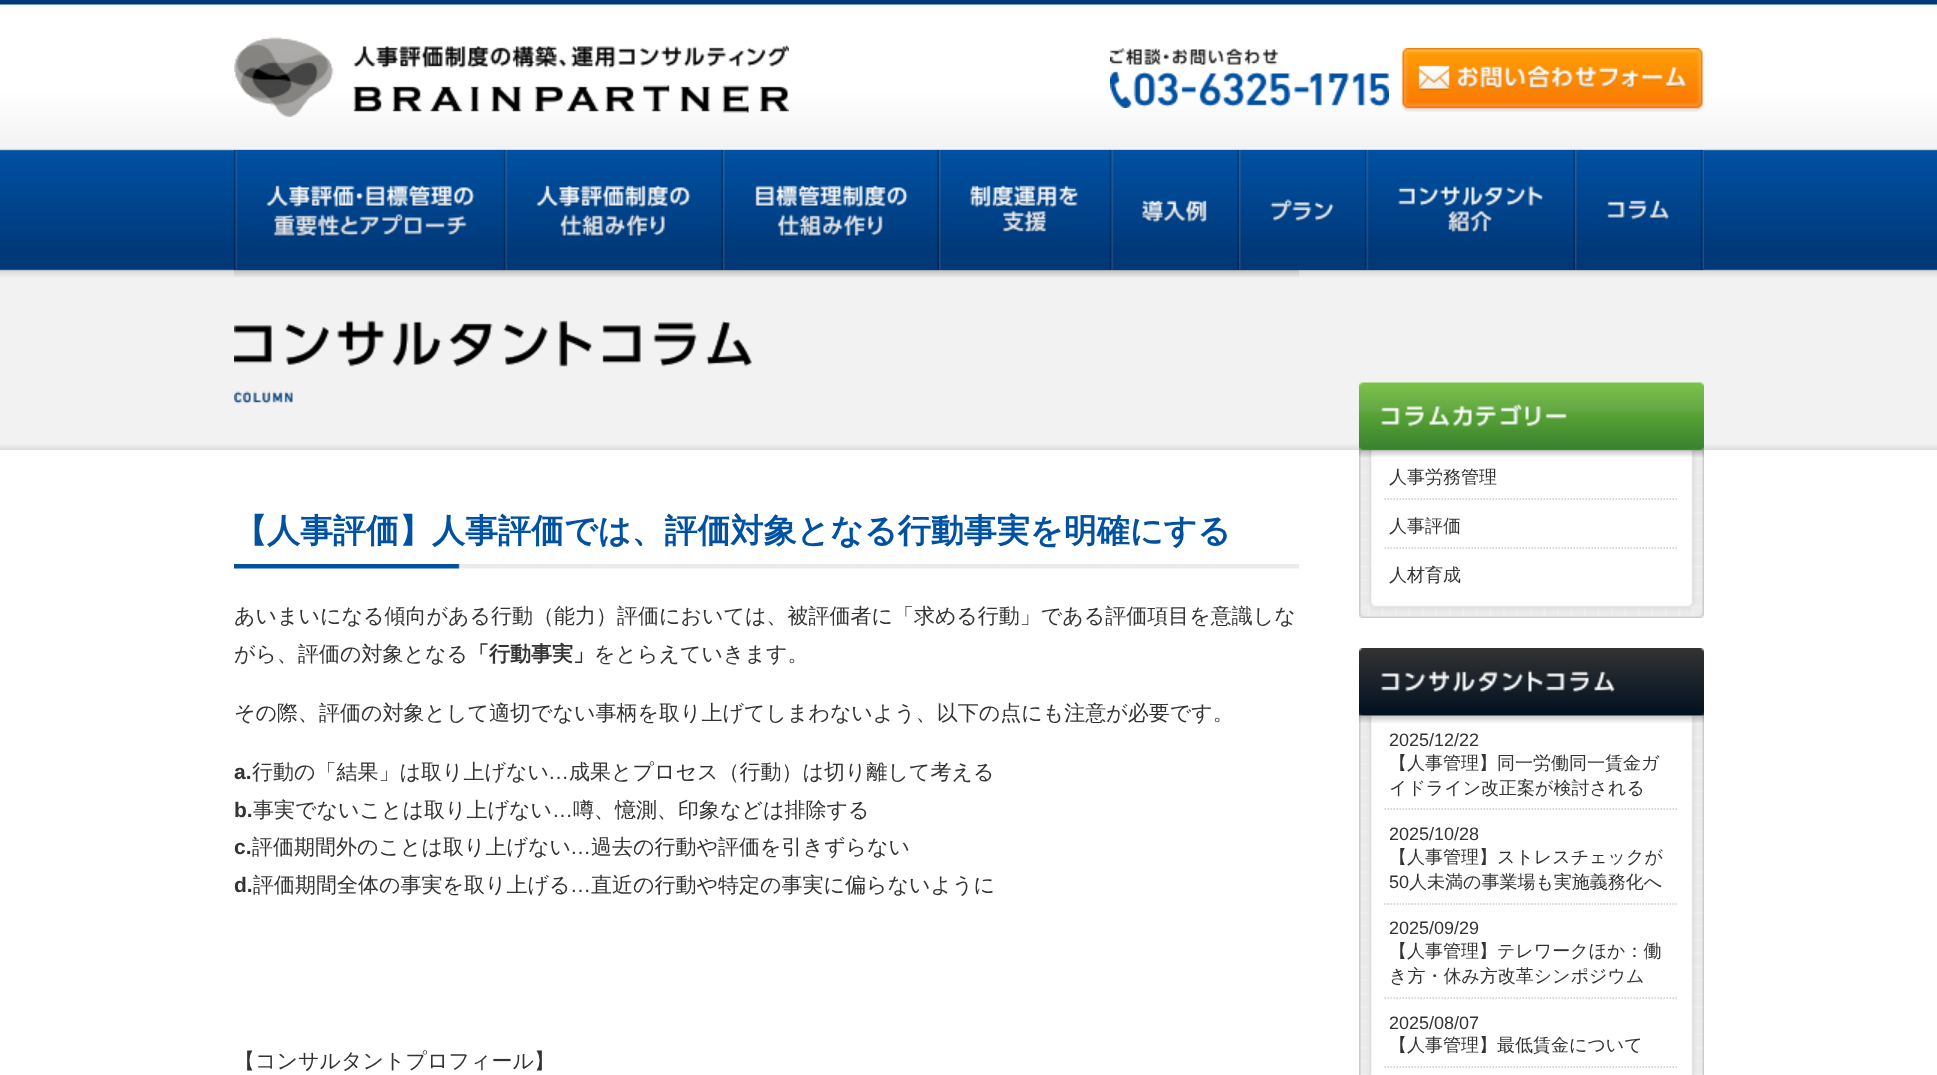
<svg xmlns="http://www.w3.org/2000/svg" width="1937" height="1075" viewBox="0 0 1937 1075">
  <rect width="100%" height="100%" fill="#fff"/>
  <image x="0" y="0" width="1937" height="450" href="img/1.png"/>
  <image x="234" y="37" width="555" height="80" href="img/2.png"/>
  <image x="1110" y="48" width="279" height="60" href="img/3.png"/>
  <image x="1401" y="48" width="303" height="64" href="img/4.png"/>
  <image x="234" y="150" width="272" height="120" href="img/5.png"/>
  <image x="505" y="150" width="218" height="120" href="img/6.png"/>
  <image x="723" y="150" width="216" height="120" href="img/7.png"/>
  <image x="939" y="150" width="173" height="120" href="img/8.png"/>
  <image x="1111" y="150" width="128" height="120" href="img/9.png"/>
  <image x="1239" y="150" width="128" height="120" href="img/10.png"/>
  <image x="1366" y="150" width="209" height="120" href="img/11.png"/>
  <image x="1575" y="150" width="129" height="120" href="img/12.png"/>
  <image x="234" y="270" width="1065" height="134" href="img/13.png"/>
  <image x="234" y="564" width="1065" height="5" href="img/14.png"/>
  <image x="1359" y="450" width="345" height="168" href="img/16.png"/>
  <image x="1359" y="382" width="345" height="75" href="img/15.png"/>
  <path d="M1384.5 499H1678.5" fill="none" stroke="#ccc" stroke-width="1.5" stroke-dasharray="1.5 1.5"/>
  <path d="M1384.5 548H1678.5" fill="none" stroke="#ccc" stroke-width="1.5" stroke-dasharray="1.5 1.5"/>
  <image x="1359" y="715" width="345" height="360" href="img/18.png"/>
  <image x="1359" y="648" width="345" height="75" href="img/17.png"/>
  <path d="M1384.5 809H1678.5" fill="none" stroke="#ccc" stroke-width="1.5" stroke-dasharray="1.5 1.5"/>
  <path d="M1384.5 904H1678.5" fill="none" stroke="#ccc" stroke-width="1.5" stroke-dasharray="1.5 1.5"/>
  <path d="M1384.5 998H1678.5" fill="none" stroke="#ccc" stroke-width="1.5" stroke-dasharray="1.5 1.5"/>
  <path d="M1384.5 1067H1678.5" fill="none" stroke="#ccc" stroke-width="1.5" stroke-dasharray="1.5 1.5"/>
  <text x="234" y="542" font-family="WenQuanYi Zen Hei" font-size="33" font-weight="bold" fill="#0051a2">【人事評価】人事評価では、評価対象となる行動事実を明確にする</text>
  <g font-family="WenQuanYi Zen Hei" font-size="21" font-weight="500" fill="#333">
    <text x="234" y="623">あいまいになる傾向がある行動（能力）評価においては、被評価者に「求める行動」である評価項目を意識しな</text>
    <text x="234" y="661">がら、評価の対象となる</text>
  </g>
  <text x="468" y="661" font-family="WenQuanYi Zen Hei" font-size="21" font-weight="bold" fill="#333">「行動事実」</text>
  <g font-family="WenQuanYi Zen Hei" font-size="21" font-weight="500" fill="#333">
    <text x="594" y="661">をとらえていきます。</text>
    <text x="234" y="720">その際、評価の対象として適切でない事柄を取り上げてしまわないよう、以下の点にも注意が必要です。</text>
  </g>
  <text x="234" y="779" font-family="Liberation Sans" font-size="21" font-weight="bold" fill="#333">a.</text>
  <text x="252" y="779" font-family="WenQuanYi Zen Hei" font-size="21" font-weight="500" fill="#333">行動の「結果」は取り上げない</text>
  <text x="548" y="779" font-family="Liberation Sans" font-size="21" fill="#333">…</text>
  <text x="569" y="779" font-family="WenQuanYi Zen Hei" font-size="21" font-weight="500" fill="#333">成果とプロセス（行動）は切り離して考える</text>
  <text x="234" y="817" font-family="Liberation Sans" font-size="21" font-weight="bold" fill="#333">b.</text>
  <text x="253" y="817" font-family="WenQuanYi Zen Hei" font-size="21" font-weight="500" fill="#333">事実でないことは取り上げない</text>
  <text x="552" y="817" font-family="Liberation Sans" font-size="21" fill="#333">…</text>
  <text x="573" y="817" font-family="WenQuanYi Zen Hei" font-size="21" font-weight="500" fill="#333">噂、憶測、印象などは排除する</text>
  <text x="234" y="854" font-family="Liberation Sans" font-size="21" font-weight="bold" fill="#333">c.</text>
  <text x="252" y="854" font-family="WenQuanYi Zen Hei" font-size="21" font-weight="500" fill="#333">評価期間外のことは取り上げない</text>
  <text x="570" y="854" font-family="Liberation Sans" font-size="21" fill="#333">…</text>
  <text x="591" y="854" font-family="WenQuanYi Zen Hei" font-size="21" font-weight="500" fill="#333">過去の行動や評価を引きずらない</text>
  <text x="234" y="892" font-family="Liberation Sans" font-size="21" font-weight="bold" fill="#333">d.</text>
  <text x="253" y="892" font-family="WenQuanYi Zen Hei" font-size="21" font-weight="500" fill="#333">評価期間全体の事実を取り上げる</text>
  <text x="570" y="892" font-family="Liberation Sans" font-size="21" fill="#333">…</text>
  <g font-family="WenQuanYi Zen Hei" font-size="21" font-weight="500" fill="#333">
    <text x="591" y="892">直近の行動や特定の事実に偏らないように</text>
    <text x="234" y="1068">【コンサルタントプロフィール】</text>
  </g>
  <g font-family="WenQuanYi Zen Hei" font-size="18" font-weight="500" fill="#333">
    <text x="1389" y="483">人事労務管理</text>
    <text x="1389" y="532">人事評価</text>
    <text x="1389" y="581">人材育成</text>
  </g>
  <text x="1389" y="746" font-family="Liberation Sans" font-size="18" fill="#333">2025/12/22</text>
  <g font-family="WenQuanYi Zen Hei" font-size="18" font-weight="500" fill="#333">
    <text x="1389" y="769">【人事管理】同一労働同一賃金ガ</text>
    <text x="1389" y="794">イドライン改正案が検討される</text>
  </g>
  <text x="1389" y="840" font-family="Liberation Sans" font-size="18" fill="#333">2025/10/28</text>
  <text x="1389" y="863" font-family="WenQuanYi Zen Hei" font-size="18" font-weight="500" fill="#333">【人事管理】ストレスチェックが</text>
  <text x="1389" y="888" font-family="Liberation Sans" font-size="18" fill="#333">50</text>
  <text x="1409" y="888" font-family="WenQuanYi Zen Hei" font-size="18" font-weight="500" fill="#333">人未満の事業場も実施義務化へ</text>
  <text x="1389" y="934" font-family="Liberation Sans" font-size="18" fill="#333">2025/09/29</text>
  <g font-family="WenQuanYi Zen Hei" font-size="18" font-weight="500" fill="#333">
    <text x="1389" y="957">【人事管理】テレワークほか：働</text>
    <text x="1389" y="982">き方・休み方改革シンポジウム</text>
  </g>
  <text x="1389" y="1029" font-family="Liberation Sans" font-size="18" fill="#333">2025/08/07</text>
  <text x="1389" y="1051" font-family="WenQuanYi Zen Hei" font-size="18" font-weight="500" fill="#333">【人事管理】最低賃金について</text>
</svg>
